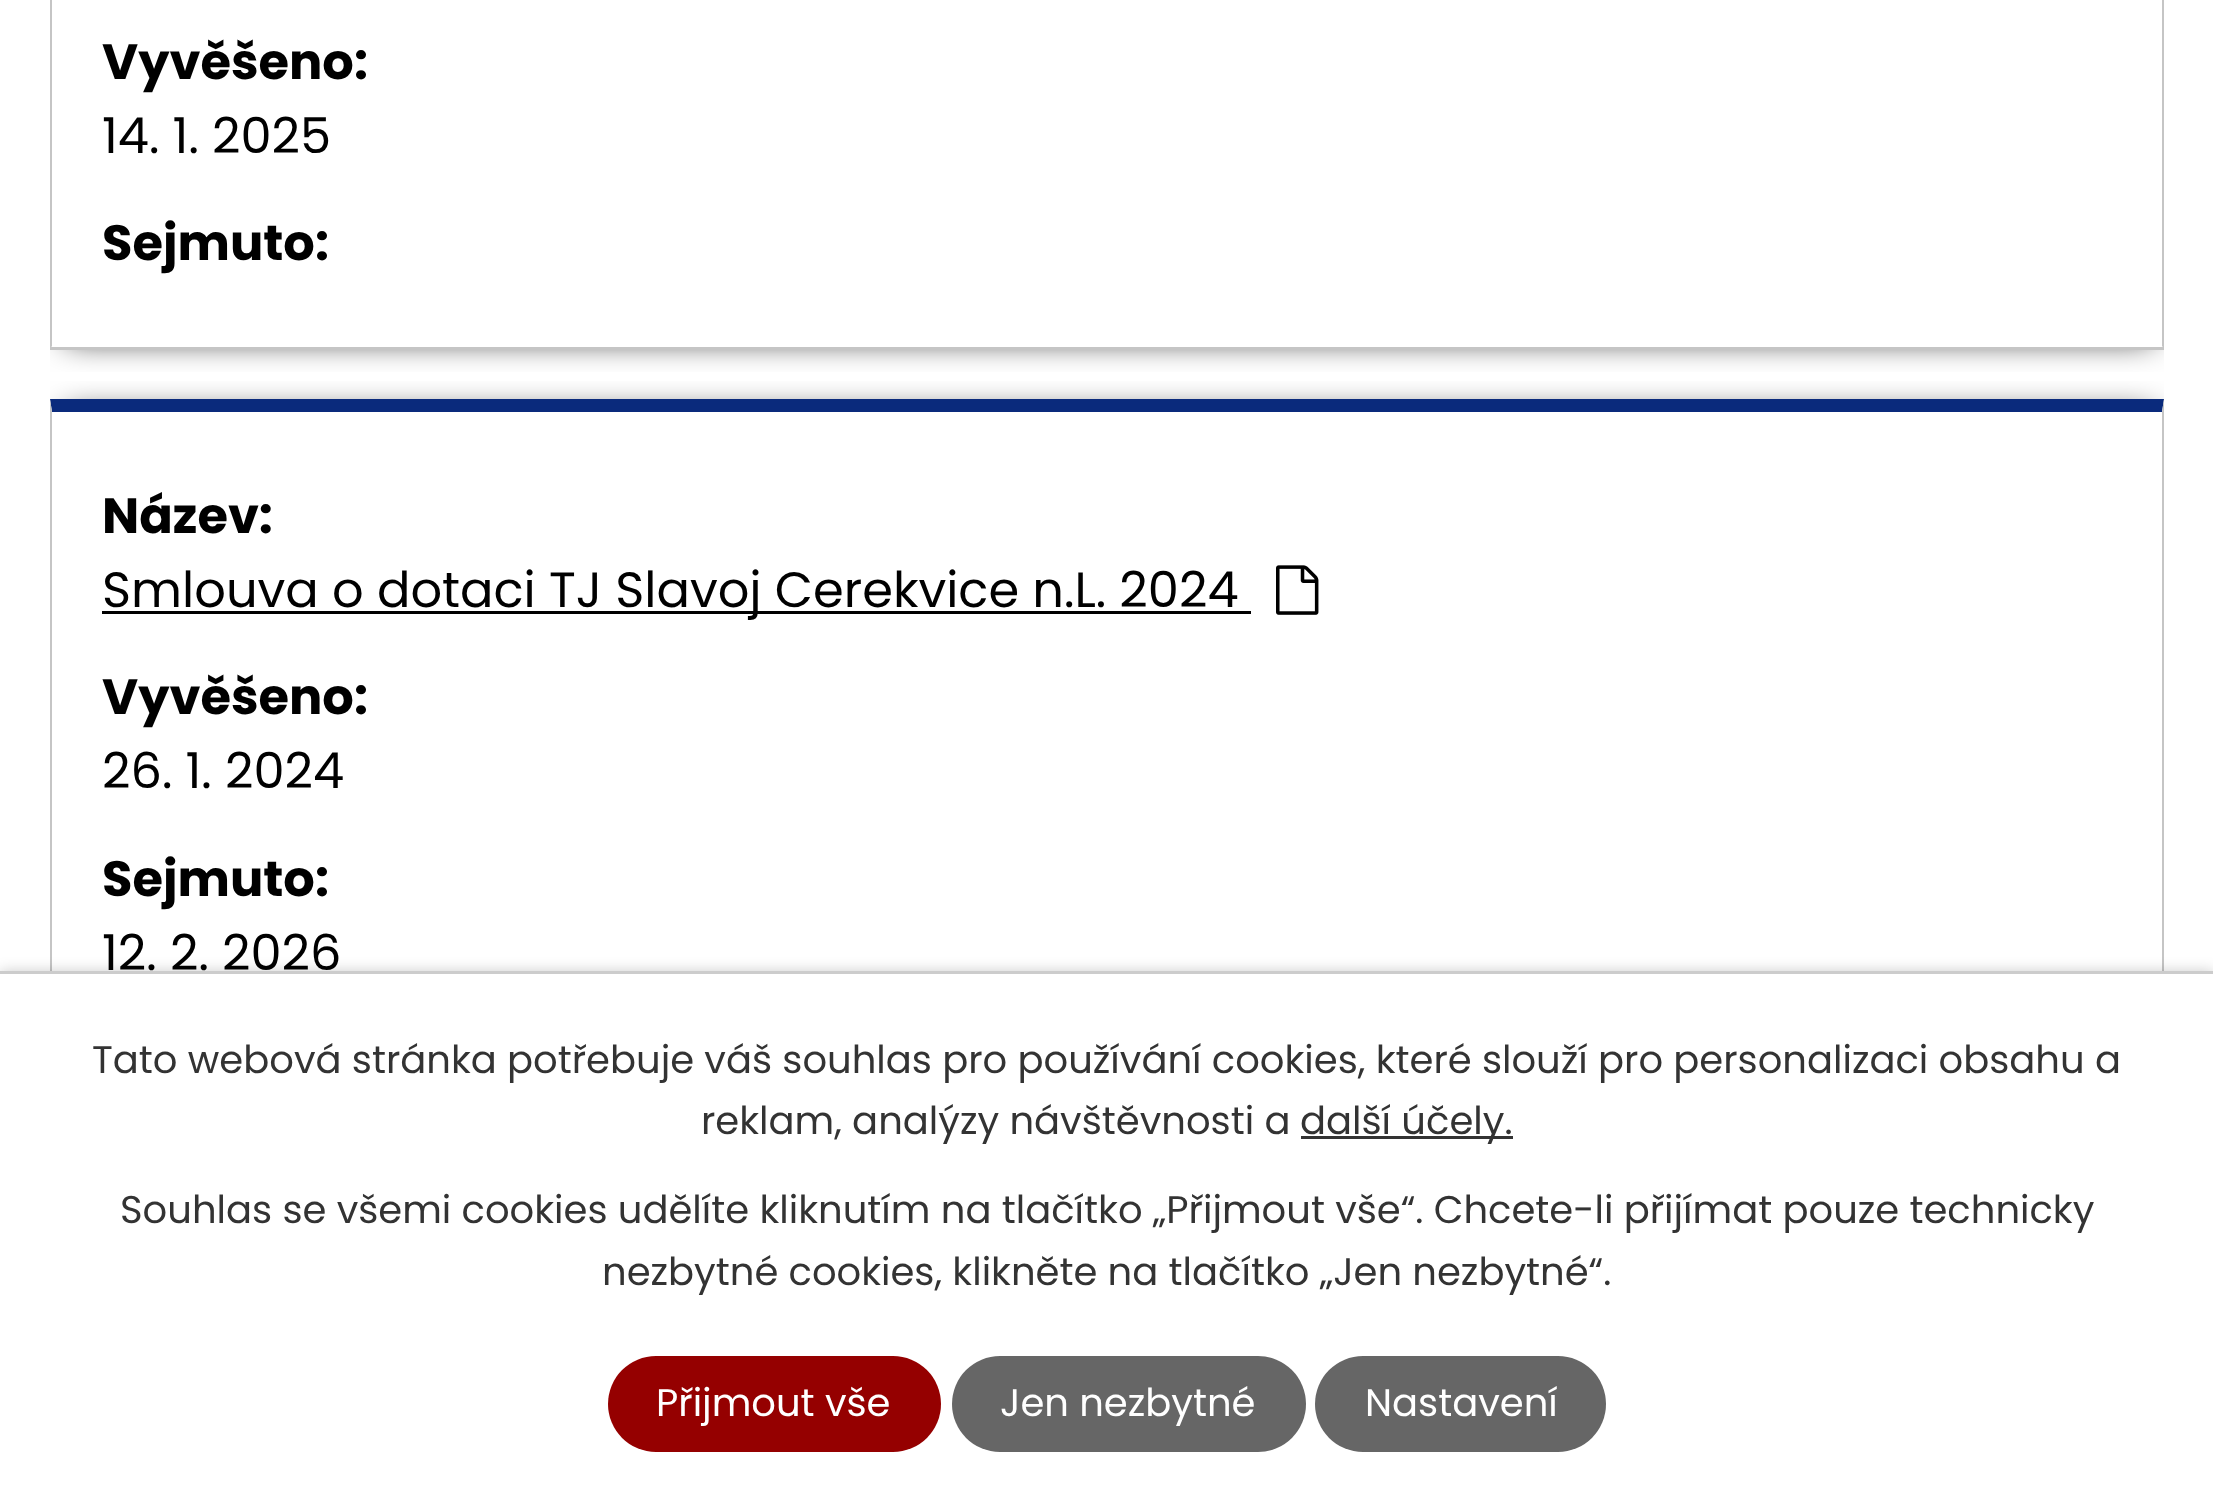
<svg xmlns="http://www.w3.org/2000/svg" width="2213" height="1502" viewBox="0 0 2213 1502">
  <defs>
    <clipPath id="clip1"><path d="M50 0h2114v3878H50z"/></clipPath>
    <clipPath id="clip2"><path d="M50 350h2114v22H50z"/></clipPath>
    <clipPath id="clip3"><path d="M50 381h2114v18H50z"/></clipPath>
  </defs>
  <rect width="100%" height="100%" fill="#fff"/>
  <g clip-path="url(#clip1)">
    <g clip-path="url(#clip2)">
      <path d="M66 -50h2087v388H66z" fill="#000" filter="blur(16.5px)"/>
    </g>
  </g>
  <path d="M2164-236V349L2162 346V-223Z" fill="#c5c5c5"/>
  <path d="M50 347h2114v3H50z" fill="#c5c5c5"/>
  <path d="M50 349V-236L52-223V346Z" fill="#c5c5c5"/>
  <g clip-path="url(#clip1)">
    <g clip-path="url(#clip3)">
      <path d="M66 415h2087v633H66z" fill="#000" filter="blur(16.5px)"/>
    </g>
  </g>
  <path d="M50 399H2164L2162 412H52Z" fill="#0a2a7c"/>
  <path d="M2164 399V1059L2162 1056V412Z" fill="#c5c5c5"/>
  <path d="M50 1059V399L52 412V1056Z" fill="#c5c5c5"/>
  <path d="M102 611h1149v3H102z" fill="#000"/>
  <image x="1276" y="565" width="43" height="50" href="img/1.png"/>
  <path d="M0 971h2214v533H0z" fill="#00000033" filter="blur(7px)"/>
  <path d="M0 974h2213v528H0z" fill="#fff"/>
  <path d="M0 971h2213v3H0z" fill="#ccc"/>
  <path d="M1301 1136h212v3H1301z" fill="#333"/>
  <rect x="608" y="1356" width="333" height="96" rx="48" fill="#950000"/>
  <rect x="952" y="1356" width="354" height="96" rx="48" fill="#666"/>
  <rect x="1315" y="1356" width="291" height="96" rx="48" fill="#666"/>
  <text x="102" y="79" font-family="Poppins" font-size="49.5" font-weight="bold" fill="#000">Vyvěšeno:</text>
  <text x="102" y="153" font-family="Poppins" font-size="49.5" fill="#000">14. 1. 2025</text>
  <g font-family="Poppins" font-size="49.5" font-weight="bold" fill="#000">
    <text x="102" y="260">Sejmuto:</text>
    <text x="102" y="533">Název:</text>
  </g>
  <text x="102" y="607" font-family="Poppins" font-size="49.5" fill="#000">Smlouva o dotaci TJ Slavoj Cerekvice n.L. 2024</text>
  <text x="102" y="714" font-family="Poppins" font-size="49.5" font-weight="bold" fill="#000">Vyvěšeno:</text>
  <text x="102" y="788" font-family="Poppins" font-size="49.5" fill="#000">26. 1. 2024</text>
  <text x="102" y="896" font-family="Poppins" font-size="49.5" font-weight="bold" fill="#000">Sejmuto:</text>
  <text x="102" y="970" font-family="Poppins" font-size="49.5" fill="#000">12. 2. 2026</text>
  <g font-family="Poppins" font-size="38.5" fill="#333">
    <text x="92" y="1073">Tato webová stránka potřebuje váš souhlas pro používání cookies, které slouží pro personalizaci obsahu a</text>
    <text x="701" y="1134">reklam, analýzy návštěvnosti a</text>
    <text x="1300" y="1134">další účely.</text>
    <text x="120" y="1223">Souhlas se všemi cookies udělíte kliknutím na tlačítko „Přijmout vše“. Chcete-li přijímat pouze technicky</text>
    <text x="602" y="1285">nezbytné cookies, klikněte na tlačítko „Jen nezbytné“.</text>
  </g>
  <g font-family="Poppins" font-size="38.5" fill="#fff">
    <text x="656" y="1416">Přijmout vše</text>
    <text x="1000" y="1416">Jen nezbytné</text>
    <text x="1365" y="1416">Nastavení</text>
  </g>
</svg>
